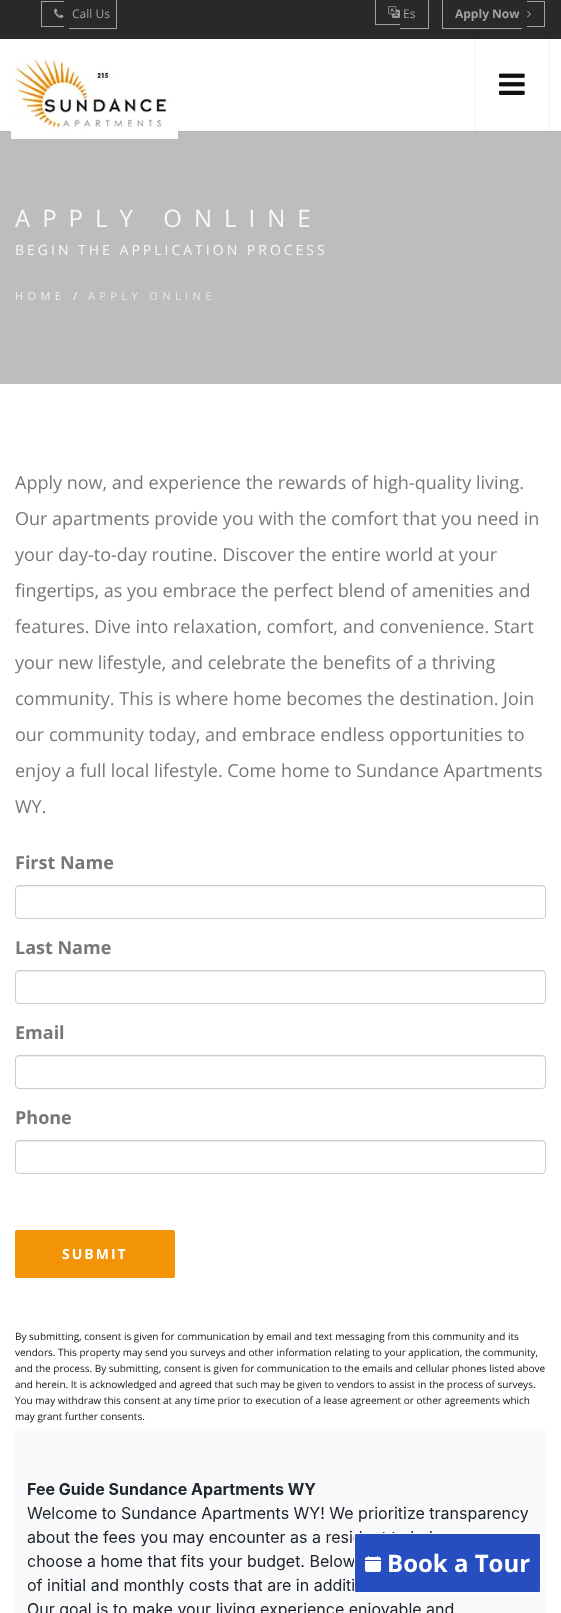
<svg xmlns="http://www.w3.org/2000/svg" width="561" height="1613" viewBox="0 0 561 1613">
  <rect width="100%" height="100%" fill="#fff"/>
  <path d="M0 0h561v39H0z" fill="#292929"/>
  <path d="M41 1h23v1H41z" fill="#a1a1a1"/>
  <path d="M41 26h23v1H41z" fill="#a1a1a1"/>
  <path d="M41 1h1v26H41z" fill="#a1a1a1"/>
  <path d="M116 0h1v29H116z" fill="#a1a1a1"/>
  <path d="M69 28h48v1H69z" fill="#a1a1a1"/>
  <image x="54" y="8" width="10" height="10" href="img/1.png"/>
  <image x="388" y="6" width="12" height="12" href="img/2.png"/>
  <path d="M375 24h25v1H375z" fill="#a1a1a1"/>
  <path d="M375 0h1v25H375z" fill="#a1a1a1"/>
  <path d="M400 28h3v1H400z" fill="#a1a1a1"/>
  <path d="M428 0h1v29H428z" fill="#a1a1a1"/>
  <path d="M403 28h26v1H403z" fill="#a1a1a1"/>
  <path d="M442 28h80v1H442z" fill="#a1a1a1"/>
  <path d="M442 0h1v29H442z" fill="#a1a1a1"/>
  <path d="M527 1h18v1H527z" fill="#a1a1a1"/>
  <path d="M544 1h1v26H544z" fill="#a1a1a1"/>
  <path d="M527 26h18v1H527z" fill="#a1a1a1"/>
  <image x="527" y="10" width="4" height="8" href="img/3.png"/>
  <path d="M0 131h561v1H0z" fill="#b4b4b4"/>
  <path d="M0 132h561v252H0z" fill="#bdbdbd"/>
  <image x="11" y="58" width="167" height="81" href="img/4.png"/>
  <path d="M549 39h1v92H549z" fill="#f2f2f2"/>
  <path d="M475 39h1v92H475z" fill="#f2f2f2"/>
  <image x="499" y="73" width="26" height="22" href="img/5.png"/>
  <path d="M19 887H542C544 887 545 888 545 890V889C545 887 544 886 542 886H19C17 886 16 887 16 889V890C16 888 17 887 19 887Z" fill="#ececec"/>
  <rect x="15.5" y="885.5" width="530" height="33" rx="3.5" fill="none" stroke="#ccc"/>
  <path d="M19 972H542C544 972 545 973 545 975V974C545 972 544 971 542 971H19C17 971 16 972 16 974V975C16 973 17 972 19 972Z" fill="#ececec"/>
  <rect x="15.5" y="970.5" width="530" height="33" rx="3.5" fill="none" stroke="#ccc"/>
  <path d="M19 1057H542C544 1057 545 1058 545 1060V1059C545 1057 544 1056 542 1056H19C17 1056 16 1057 16 1059V1060C16 1058 17 1057 19 1057Z" fill="#ececec"/>
  <rect x="15.5" y="1055.5" width="530" height="33" rx="3.5" fill="none" stroke="#ccc"/>
  <path d="M19 1142H542C544 1142 545 1143 545 1145V1144C545 1142 544 1141 542 1141H19C17 1141 16 1142 16 1144V1145C16 1143 17 1142 19 1142Z" fill="#ececec"/>
  <rect x="15.5" y="1140.5" width="530" height="33" rx="3.5" fill="none" stroke="#ccc"/>
  <rect x="15" y="1230" width="160" height="48" rx="2" fill="#f39408"/>
  <image x="15" y="1429" width="531" height="184" href="img/6.png"/>
  <rect x="354.5" y="1533.5" width="186" height="59" rx="1.5" fill="#264ec1" stroke="#fff"/>
  <image x="365" y="1556" width="16" height="16" href="img/7.png"/>
  <g font-family="Open Sans" font-size="12" fill="#a1a1a1">
    <text x="72" y="18">Call Us</text>
    <text x="403" y="18">Es</text>
  </g>
  <text x="455" y="18" font-family="Open Sans" font-size="12" font-weight="bold" fill="#a1a1a1">Apply Now</text>
  <text x="15" y="227" font-family="Open Sans" font-size="24" letter-spacing="12" fill="#f8f8f8">APPLY ONLINE</text>
  <text x="15" y="255" font-family="Open Sans" font-size="14" letter-spacing="3" fill="#f8f8f8">BEGIN THE APPLICATION PROCESS</text>
  <text x="15" y="300" font-family="Open Sans" font-size="11" letter-spacing="4.4" fill="#f2f2f2">HOME</text>
  <text x="73" y="300" font-family="Open Sans" font-size="11" letter-spacing="4.4" fill="#fff">/</text>
  <text x="88" y="300" font-family="Open Sans" font-size="11" letter-spacing="4.4" fill="#e8e8e8">APPLY ONLINE</text>
  <g font-family="Open Sans" font-size="18" fill="#777">
    <text x="15" y="489">Apply now, and experience the rewards of high-quality living.</text>
    <text x="15" y="525">Our apartments provide you with the comfort that you need in</text>
    <text x="15" y="561">your day-to-day routine. Discover the entire world at your</text>
    <text x="15" y="597">fingertips, as you embrace the perfect blend of amenities and</text>
    <text x="15" y="633">features. Dive into relaxation, comfort, and convenience. Start</text>
    <text x="15" y="669">your new lifestyle, and celebrate the benefits of a thriving</text>
    <text x="15" y="705">community. This is where home becomes the destination. Join</text>
    <text x="15" y="741">our community today, and embrace endless opportunities to</text>
    <text x="15" y="777">enjoy a full local lifestyle. Come home to Sundance Apartments</text>
    <text x="15" y="813">WY.</text>
  </g>
  <g font-family="Open Sans" font-size="18" font-weight="bold" fill="#777">
    <text x="15" y="869">First Name</text>
    <text x="15" y="954">Last Name</text>
    <text x="15" y="1039">Email</text>
    <text x="15" y="1124">Phone</text>
  </g>
  <text x="62" y="1259" font-family="Open Sans" font-size="14" font-weight="bold" letter-spacing="2" fill="#fff">SUBMIT</text>
  <g font-family="Open Sans" font-size="10" fill="#111">
    <text x="15" y="1340">By submitting, consent is given for communication by email and text messaging from this community and its</text>
    <text x="15" y="1356">vendors. This property may send you surveys and other information relating to your application, the community,</text>
    <text x="15" y="1372">and the process. By submitting, consent is given for communication to the emails and cellular phones listed above</text>
    <text x="15" y="1388">and herein. It is acknowledged and agreed that such may be given to vendors to assist in the process of surveys.</text>
    <text x="15" y="1404">You may withdraw this consent at any time prior to execution of a lease agreement or other agreements which</text>
    <text x="15" y="1420">may grant further consents.</text>
  </g>
  <text x="387" y="1572" font-family="Open Sans" font-size="24" font-weight="bold" fill="#fff">Book a Tour</text>
</svg>
